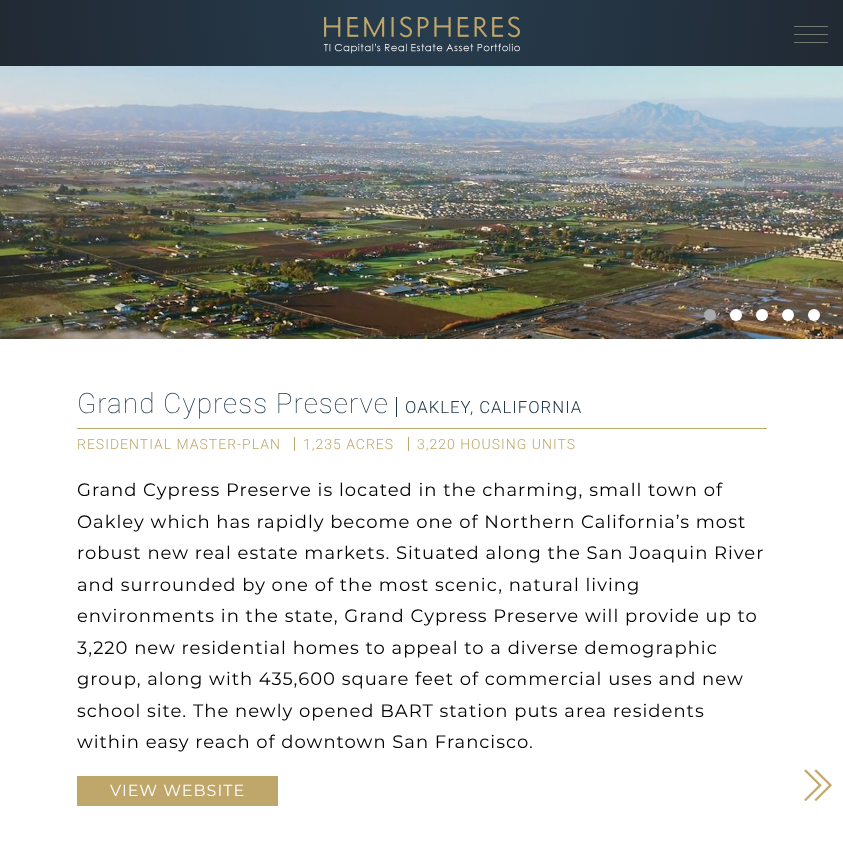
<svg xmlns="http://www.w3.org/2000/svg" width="843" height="859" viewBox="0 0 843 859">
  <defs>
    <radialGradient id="g1" gradientUnits="userSpaceOnUse" cx="422" cy="0" r="427"><stop offset="0" stop-color="#273d4f"/><stop offset="1" stop-color="#212933"/></radialGradient>
    <radialGradient id="g2" gradientUnits="userSpaceOnUse" cx="422" cy="0" r="427"><stop offset="0" stop-color="#738380"/><stop offset="1" stop-color="#707972"/></radialGradient>
  </defs>
  <rect width="100%" height="100%" fill="#fff"/>
  <path d="M0 0h843v66H0z" fill="url(#g1)"/>
  <path d="M794 26h34v1H794z" fill="url(#g2)"/>
  <path d="M794 34h34v1H794z" fill="url(#g2)"/>
  <image x="323" y="16" width="197" height="38" href="img/1.png"/>
  <path d="M794 42h34v1H794z" fill="#707a73"/>
  <image x="0" y="66" width="843" height="273" href="img/2.png"/>
  <circle cx="710" cy="315" r="6" fill="#aaa"/>
  <circle cx="736" cy="315" r="6" fill="#fff"/>
  <circle cx="762" cy="315" r="6" fill="#fff"/>
  <circle cx="788" cy="315" r="6" fill="#fff"/>
  <circle cx="814" cy="315" r="6" fill="#fff"/>
  <path d="M77 428h690v1H77z" fill="#bfa66a"/>
  <path d="M396 397h1v20H396z" fill="#203749"/>
  <path d="M294 437h1v14H294z" fill="#bfa66a"/>
  <path d="M408 437h1v14H408z" fill="#bfa66a"/>
  <path d="M77 776h201v30H77z" fill="#bfa66a"/>
  <image x="804" y="769" width="28" height="32" href="img/3.png"/>
  <text x="77" y="413" font-family="Roboto" font-size="28" font-weight="100" letter-spacing="1" fill="#203749">Grand Cypress Preserve</text>
  <text x="405" y="413" font-family="Roboto" font-size="16.75" font-weight="300" letter-spacing="1" fill="#203749">OAKLEY, CALIFORNIA</text>
  <g font-family="Roboto" font-size="14" font-weight="300" letter-spacing="1" fill="#bfa66a">
    <text x="77" y="449">RESIDENTIAL MASTER-PLAN</text>
    <text x="303" y="449">1,235 ACRES</text>
    <text x="417" y="449">3,220 HOUSING UNITS</text>
  </g>
  <g font-family="Montserrat" font-size="18" letter-spacing="1" fill="#000">
    <text x="77" y="496">Grand Cypress Preserve is located in the charming, small town of</text>
    <text x="77" y="528">Oakley which has rapidly become one of Northern California’s most</text>
    <text x="77" y="559">robust new real estate markets. Situated along the San Joaquin River</text>
    <text x="77" y="591">and surrounded by one of the most scenic, natural living</text>
    <text x="77" y="622">environments in the state, Grand Cypress Preserve will provide up to</text>
    <text x="77" y="654">3,220 new residential homes to appeal to a diverse demographic</text>
    <text x="77" y="685">group, along with 435,600 square feet of commercial uses and new</text>
    <text x="77" y="717">school site. The newly opened BART station puts area residents</text>
    <text x="77" y="748">within easy reach of downtown San Francisco.</text>
  </g>
  <text x="110" y="796" font-family="Montserrat" font-size="16" letter-spacing="1" fill="#fff">VIEW WEBSITE</text>
</svg>
